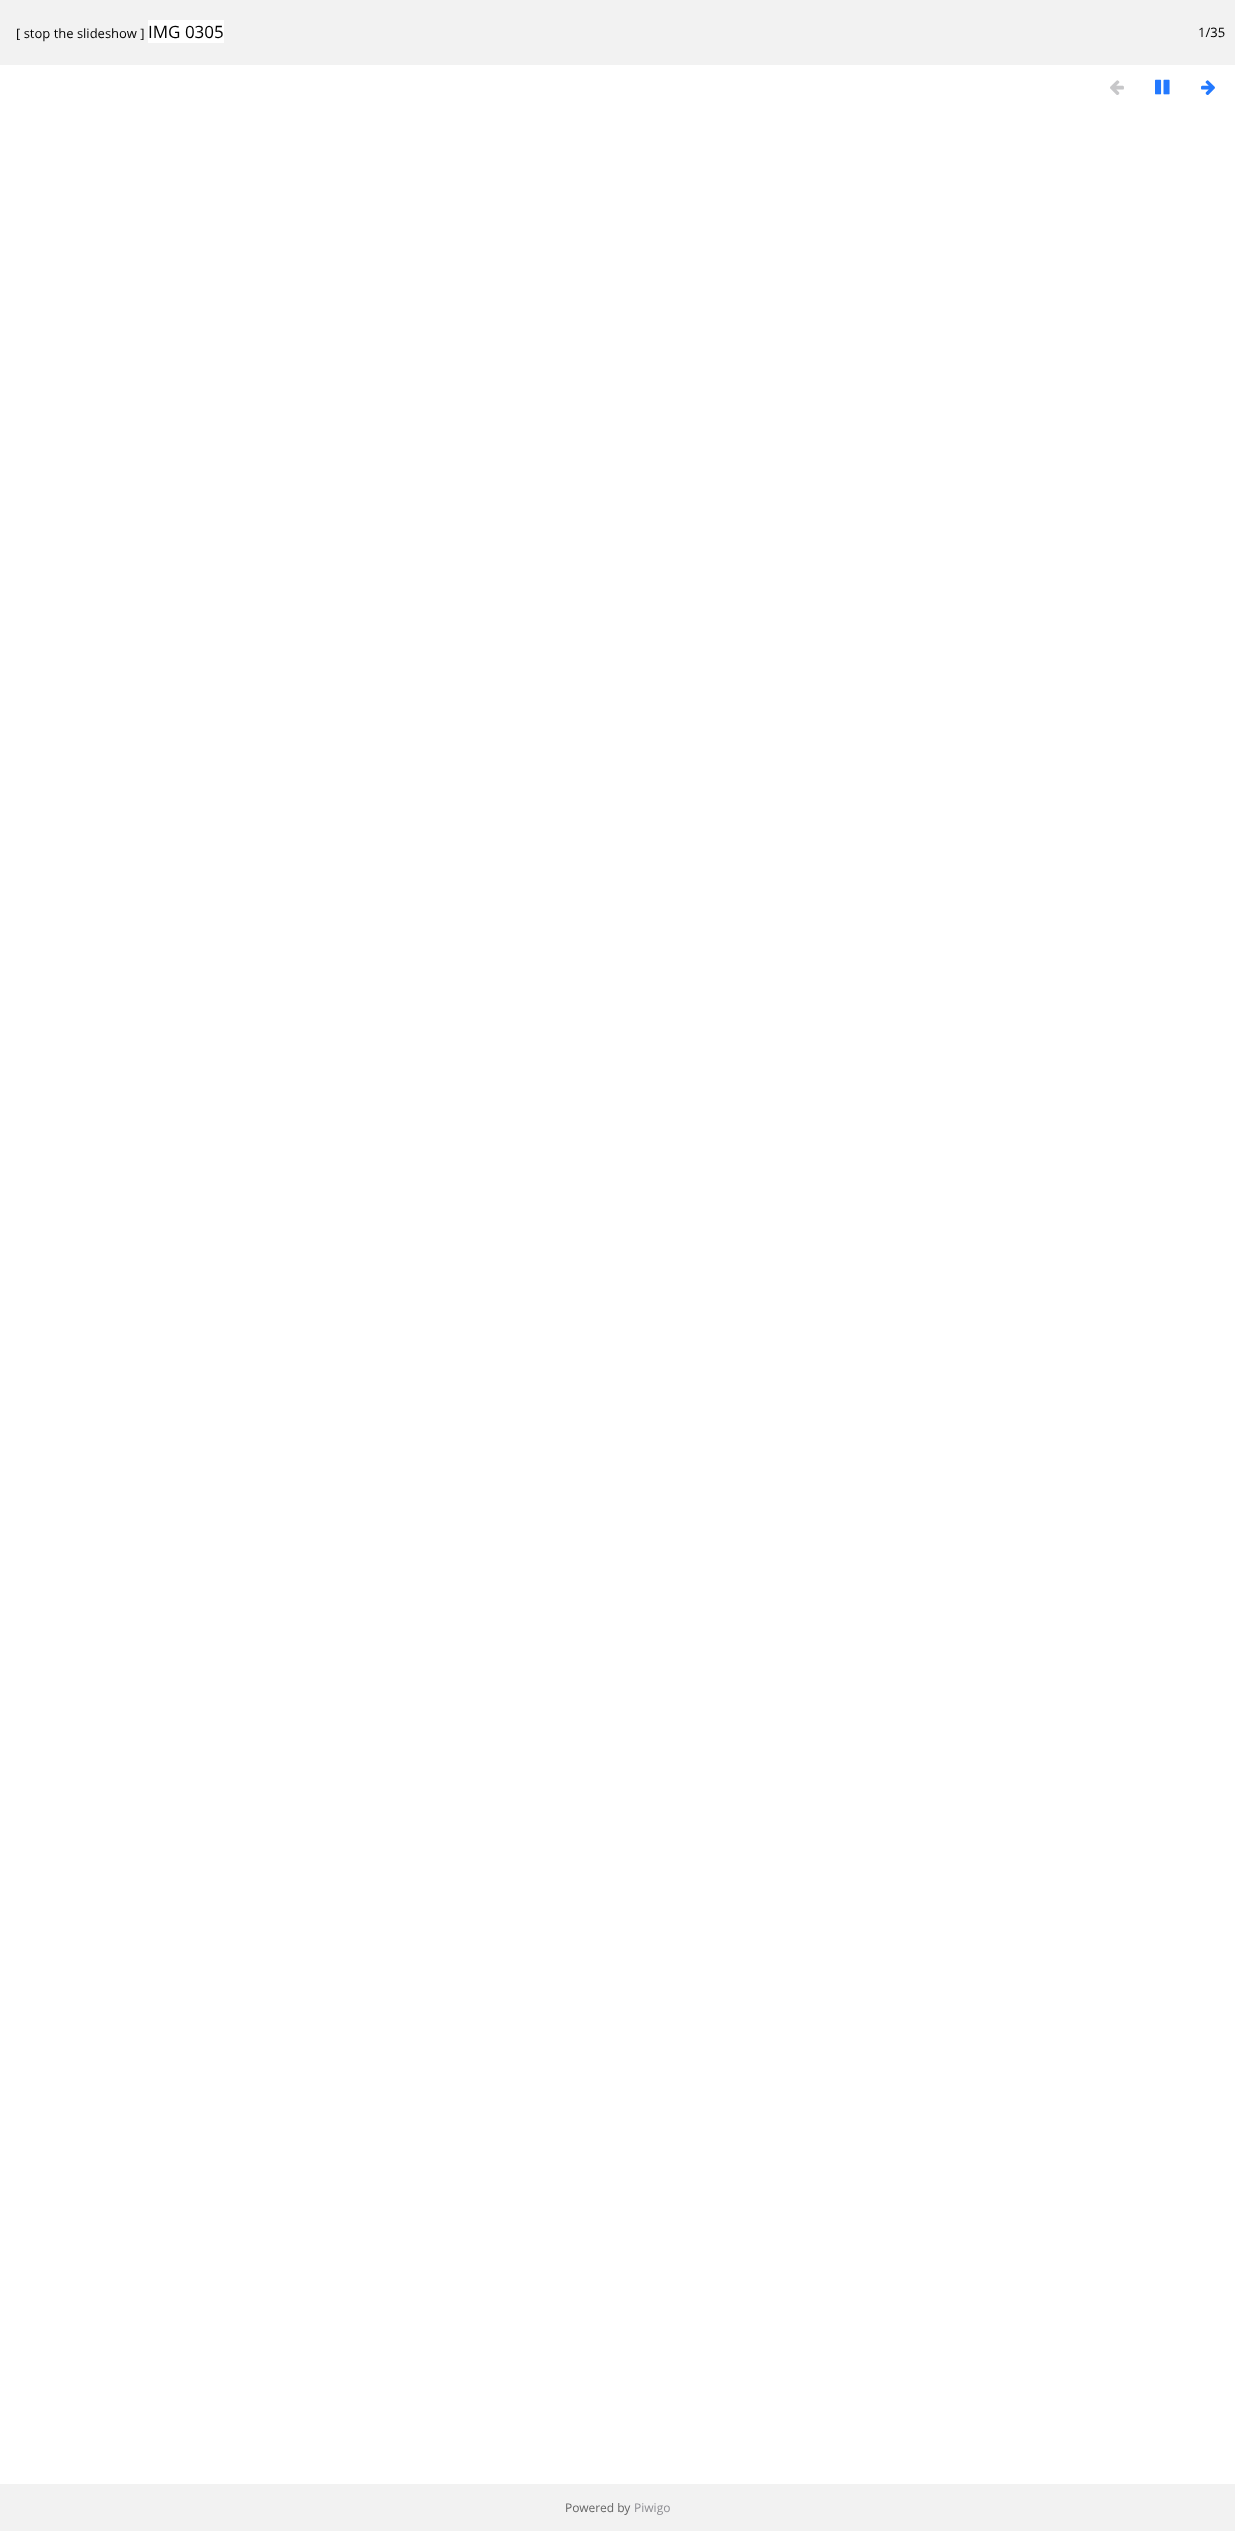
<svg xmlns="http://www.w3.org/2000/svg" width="1235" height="2531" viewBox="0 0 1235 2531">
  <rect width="100%" height="100%" fill="#fff"/>
  <path d="M0 0h1235v65H0z" fill="#f2f2f2"/>
  <path d="M148 20h76v23H148z" fill="#fff"/>
  <image x="1155" y="79" width="15" height="16" href="img/1.png"/>
  <path d="M0 2484h1235v47H0z" fill="#f2f2f2"/>
  <text x="16" y="38" font-family="Open Sans" font-size="13" fill="#000">[ stop the slideshow ]</text>
  <text x="148" y="38" font-family="Open Sans" font-size="17" fill="#000">IMG 0305</text>
  <text x="1198" y="37" font-family="Open Sans" font-size="13" fill="#000">1/35</text>
  <text x="1110" y="93" font-family="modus" font-size="17" fill="#c7c7c9">←</text>
  <text x="1201" y="93" font-family="modus" font-size="17" fill="#2379ff">→</text>
  <text x="565" y="2512" font-family="Open Sans" font-size="12" fill="#666">Powered by</text>
  <text x="634" y="2512" font-family="Open Sans" font-size="12" fill="#8e8e93">Piwigo</text>
</svg>
